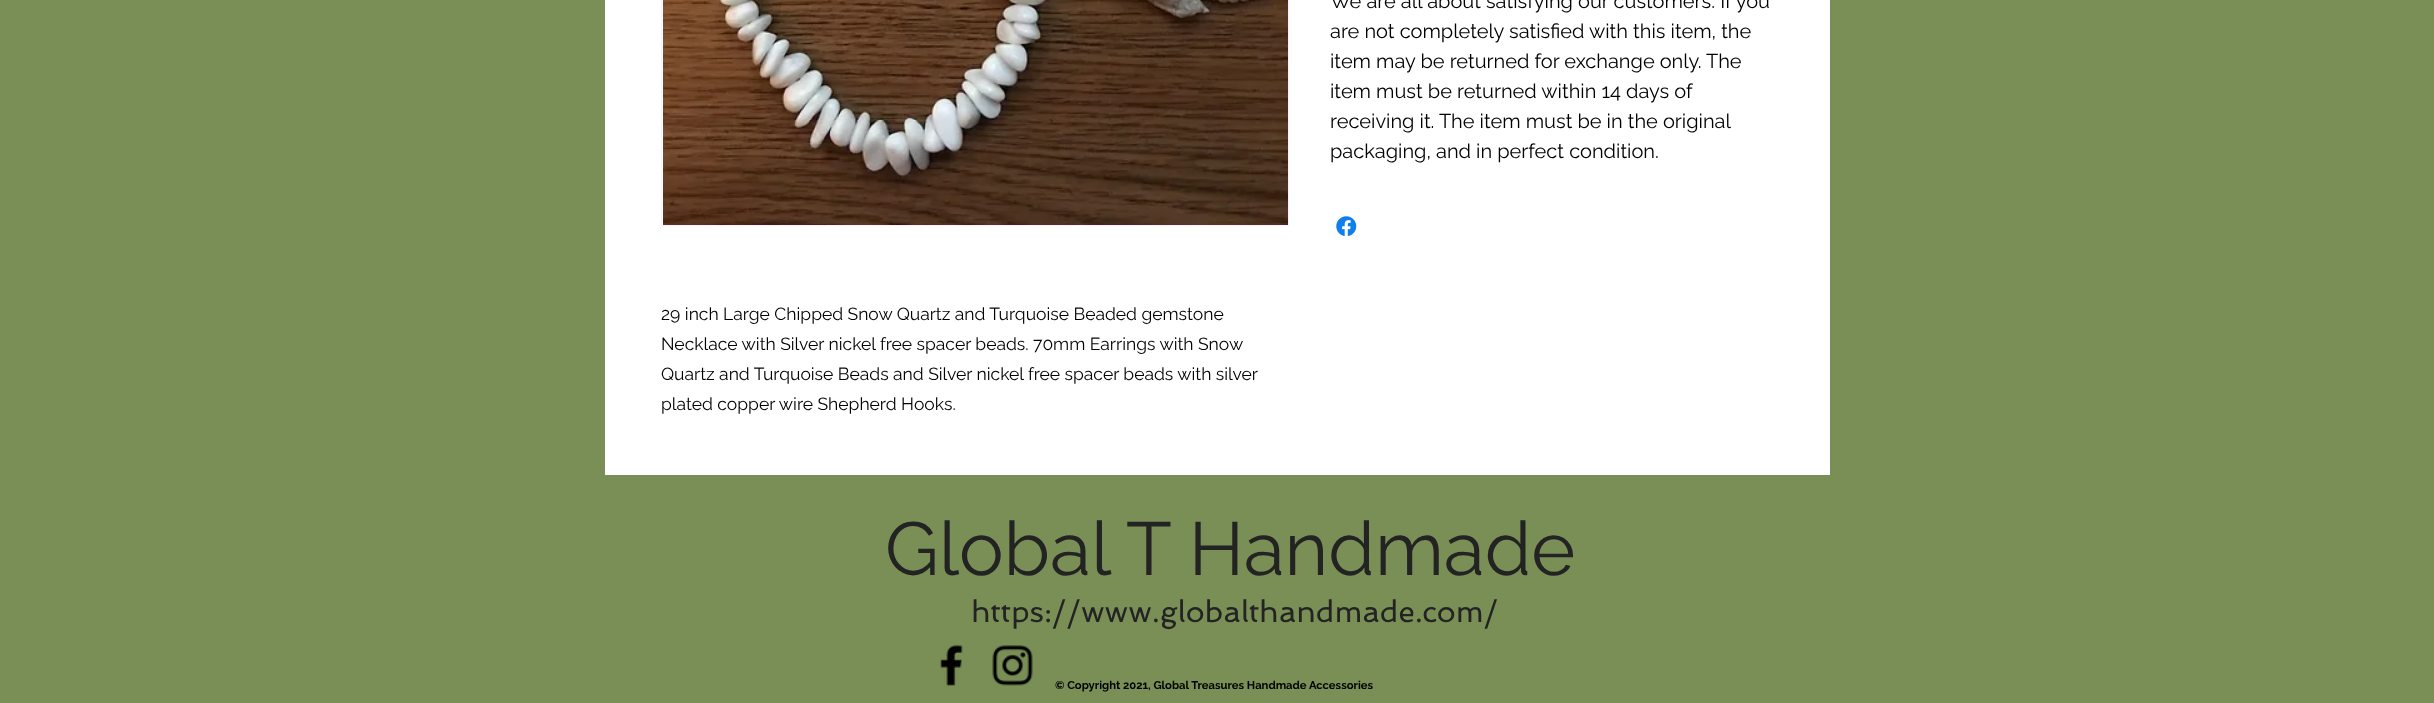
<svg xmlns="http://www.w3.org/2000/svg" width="2434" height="703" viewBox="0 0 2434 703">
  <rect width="100%" height="100%" fill="#7a8f56"/>
  <path d="M605 0h1225v475H605z" fill="#fff"/>
  <image x="1336" y="216" width="21" height="21" href="img/1.png"/>
  <path d="M661.5 -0.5h627v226H661.5z" fill="none" stroke="#ffebff"/>
  <image x="663" y="0" width="625" height="225" href="img/2.png"/>
  <image x="940" y="645" width="23" height="41" href="img/3.png"/>
  <image x="992" y="645" width="41" height="41" href="img/4.png"/>
  <g font-family="Raleway" font-size="20" fill="#000">
    <text x="1330" y="8">We are all about satisfying our customers. If you</text>
    <text x="1330" y="38">are not completely satisfied with this item, the</text>
    <text x="1330" y="68">item may be returned for exchange only. The</text>
    <text x="1330" y="98">item must be returned within 14 days of</text>
    <text x="1330" y="128">receiving it. The item must be in the original</text>
    <text x="1330" y="158">packaging, and in perfect condition.</text>
  </g>
  <g font-family="Raleway" font-size="17.5" fill="#000">
    <text x="661" y="320">29 inch Large Chipped Snow Quartz and Turquoise Beaded gemstone</text>
    <text x="661" y="350">Necklace with Silver nickel free spacer beads. 70mm Earrings with Snow</text>
    <text x="661" y="380">Quartz and Turquoise Beads and Silver nickel free spacer beads with silver</text>
    <text x="661" y="410">plated copper wire Shepherd Hooks.</text>
  </g>
  <text x="885" y="575" font-family="Raleway" font-size="75" fill="#232323">Global T Handmade</text>
  <text x="971" y="622" font-family="Spinnaker" font-size="30" fill="#232323">https://www.globalthandmade.com/</text>
  <text x="1055" y="689" font-family="Raleway" font-size="11.25" font-weight="bold" fill="#000">© Copyright 2021, Global Treasures Handmade Accessories</text>
</svg>
